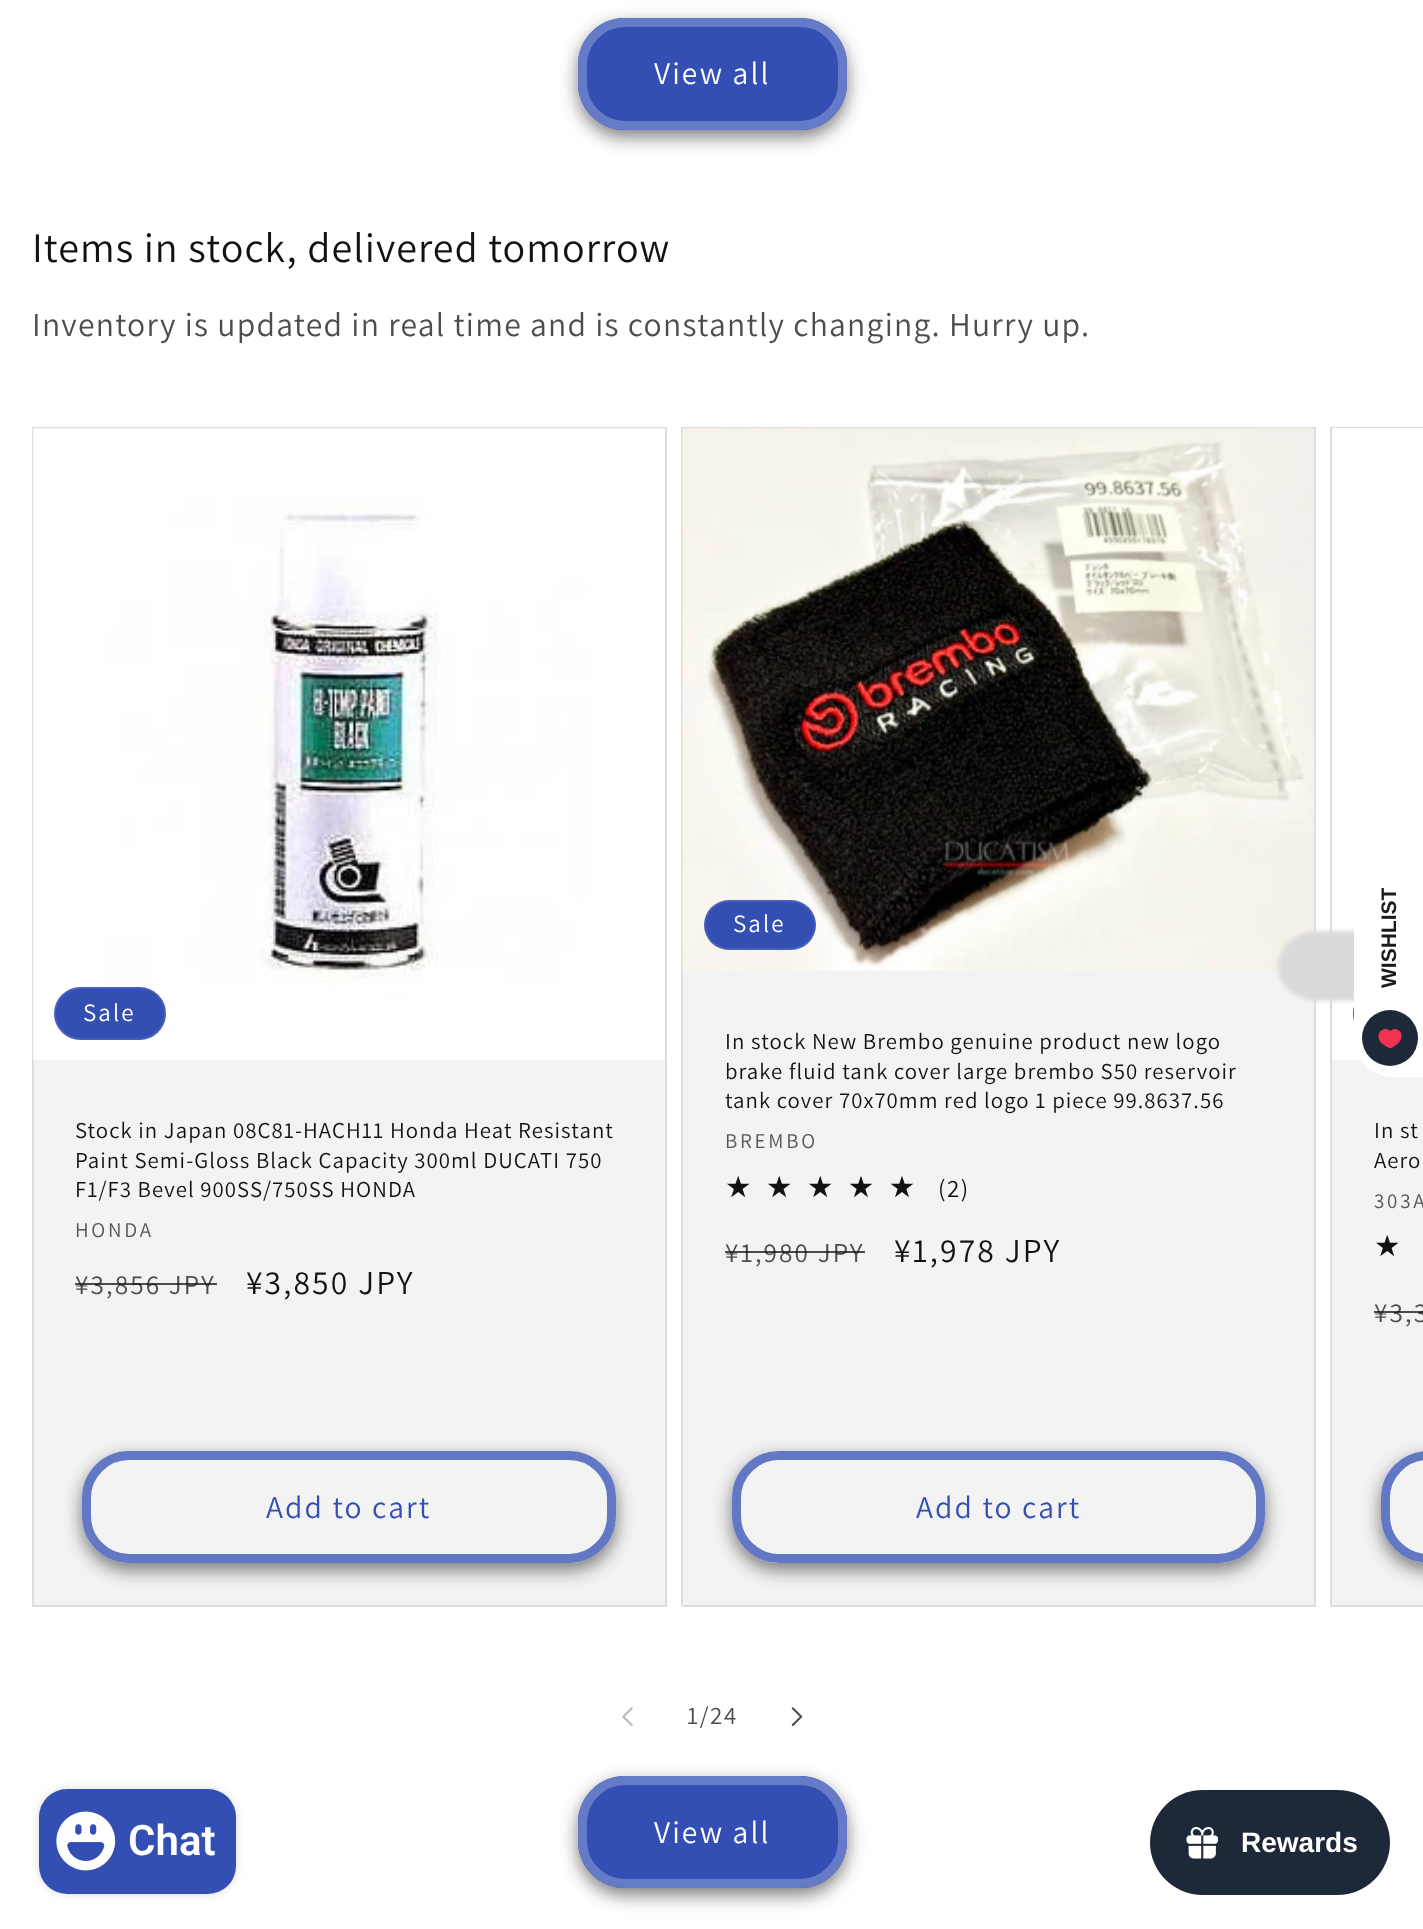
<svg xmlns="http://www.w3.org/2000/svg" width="1423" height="1929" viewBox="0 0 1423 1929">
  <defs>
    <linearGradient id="g1" gradientUnits="userSpaceOnUse" x1="725" y1="1187" x2="930" y2="1187"><stop offset="1" stop-color="#121212"/><stop offset="1" stop-color="#d1d1d1"/></linearGradient>
    <linearGradient id="g2" gradientUnits="userSpaceOnUse" x1="1374" y1="1247" x2="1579" y2="1247"><stop offset="1" stop-color="#121212"/><stop offset="1" stop-color="#d1d1d1"/></linearGradient>
  </defs>
  <rect width="100%" height="100%" fill="#fff"/>
  <rect x="578" y="25" width="269" height="112" rx="47" fill="#1212128c" filter="blur(9px)"/>
  <rect x="578" y="18" width="269" height="112" rx="47" fill="#334fb4"/>
  <rect x="582.5" y="22.5" width="260" height="103" rx="42.5" fill="none" stroke="#334fb4" stroke-width="9"/>
  <rect x="582.5" y="22.5" width="260" height="103" rx="42.5" fill="none" stroke="#ffffff40" stroke-width="9"/>
  <path d="M34 1060h631v545H34z" fill="#f3f3f3"/>
  <path d="M33 428h633v1178H33z" fill="none" stroke="#ddd" stroke-width="2"/>
  <image x="33" y="428" width="632" height="632" href="img/1.png"/>
  <rect x="54" y="987" width="112" height="53" rx="26.5" fill="#334fb4"/>
  <rect x="55" y="988" width="110" height="51" rx="25.5" fill="none" stroke="#ffffff1a" stroke-width="2"/>
  <rect x="82" y="1458" width="534" height="112" rx="47" fill="#1212128c" filter="blur(9px)"/>
  <rect x="82" y="1451" width="534" height="112" rx="47" fill="#f3f3f3"/>
  <rect x="86.5" y="1455.5" width="525" height="103" rx="42.5" fill="none" stroke="#f3f3f3" stroke-width="9"/>
  <rect x="86.5" y="1455.5" width="525" height="103" rx="42.5" fill="none" stroke="#334fb4bf" stroke-width="9"/>
  <path d="M683 970h631v635H683z" fill="#f3f3f3"/>
  <path d="M682 428h633v1178H682z" fill="none" stroke="#ddd" stroke-width="2"/>
  <image x="682" y="428" width="633" height="543" href="img/2.png"/>
  <rect x="704" y="900" width="112" height="50" rx="25" fill="#334fb4"/>
  <rect x="705" y="901" width="110" height="48" rx="24" fill="none" stroke="#ffffff1a" stroke-width="2"/>
  <rect x="732" y="1458" width="533" height="112" rx="47" fill="#1212128c" filter="blur(9px)"/>
  <rect x="732" y="1451" width="533" height="112" rx="47" fill="#f3f3f3"/>
  <rect x="736.5" y="1455.5" width="524" height="103" rx="42.5" fill="none" stroke="#f3f3f3" stroke-width="9"/>
  <rect x="736.5" y="1455.5" width="524" height="103" rx="42.5" fill="none" stroke="#334fb4bf" stroke-width="9"/>
  <path d="M1332 1060h91v545H1332z" fill="#f3f3f3"/>
  <path d="M1331 428h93v1178H1331z" fill="none" stroke="#ddd" stroke-width="2"/>
  <path d="M1332 428h91v1H1332z" fill="#fff"/>
  <path d="M1379.5 987H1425V1040H1379.5C1365 1040 1353 1028 1353 1013.5C1353 999 1365 987 1379.5 987Z" fill="#334fb4"/>
  <rect x="1354" y="988" width="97" height="51" rx="25.5" fill="none" stroke="#ffffff1a" stroke-width="2"/>
  <rect x="1381" y="1458" width="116" height="112" rx="47" fill="#1212128c" filter="blur(9px)"/>
  <path d="M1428 1451H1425V1563H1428C1402 1563 1381 1542 1381 1516V1498C1381 1472 1402 1451 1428 1451Z" fill="#f3f3f3"/>
  <rect x="1385.5" y="1455.5" width="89" height="103" rx="42.5" fill="none" stroke="#f3f3f3" stroke-width="9"/>
  <rect x="1385.5" y="1455.5" width="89" height="103" rx="42.5" fill="none" stroke="#334fb4bf" stroke-width="9"/>
  <image x="622" y="1707" width="11" height="19" href="img/3.png"/>
  <image x="791" y="1707" width="12" height="20" href="img/4.png"/>
  <rect x="578" y="1783" width="269" height="112" rx="47" fill="#1212128c" filter="blur(9px)"/>
  <rect x="578" y="1776" width="269" height="112" rx="47" fill="#334fb4"/>
  <rect x="582.5" y="1780.5" width="260" height="103" rx="42.5" fill="none" stroke="#334fb4" stroke-width="9"/>
  <rect x="582.5" y="1780.5" width="260" height="103" rx="42.5" fill="none" stroke="#ffffff40" stroke-width="9"/>
  <rect x="39" y="1789" width="197" height="105" rx="28" fill="#00000026" filter="blur(4.5px)"/>
  <rect x="39" y="1789" width="197" height="105" rx="28" fill="#334fb4"/>
  <image x="56" y="1811" width="60" height="60" href="img/5.png"/>
  <rect x="1278" y="931" width="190" height="70" rx="39" fill="#dadada" filter="blur(2px)"/>
  <path d="M1354 1039V892C1354 870 1372 853 1393 853H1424V1077H1393C1372 1077 1354 1060 1354 1039Z" fill="#fff"/>
  <circle cx="1390" cy="1038" r="28" fill="#1d2939"/>
  <path d="M1390 1031C1383 1024 1371.5 1036.5 1384 1045C1386 1046 1388 1048 1390 1048C1392 1048 1394.5 1046 1396 1045C1408.5 1036.5 1397.5 1024 1390 1031Z" fill="#ef3251"/>
  <rect x="1150" y="1790" width="240" height="105" rx="52.5" fill="#1d2939"/>
  <image x="1186" y="1827" width="32" height="32" href="img/6.png"/>
  <text x="654" y="84" font-family="Assistant" font-size="31.5" letter-spacing="2.1" fill="#fff">View all</text>
  <text x="32" y="262" font-family="Assistant" font-size="42" letter-spacing="1.05" fill="#121212">Items in stock, delivered tomorrow</text>
  <text x="32" y="336" font-family="Assistant" font-size="33.6" letter-spacing="1.25" fill="#4d4d4d">Inventory is updated in real time and is constantly changing. Hurry up.</text>
  <text x="83" y="1021" font-family="Assistant" font-size="25" letter-spacing="2.1" fill="#fff">Sale</text>
  <g font-family="Assistant" font-size="22.75" letter-spacing="1.05" fill="#121212">
    <text x="75" y="1138">Stock in Japan 08C81-HACH11 Honda Heat Resistant</text>
    <text x="75" y="1168">Paint Semi-Gloss Black Capacity 300ml DUCATI 750</text>
    <text x="75" y="1197">F1/F3 Bevel 900SS/750SS HONDA</text>
  </g>
  <text x="75" y="1237" font-family="Assistant" font-size="21" letter-spacing="2.75" fill="#565656">HONDA</text>
  <text x="75" y="1294" font-family="Assistant" font-size="27.25" letter-spacing="2.1" fill="#4d4d4d">¥3,856 JPY</text>
  <path d="M75 1283h142v2H75z" fill="#121212bf"/>
  <text x="246" y="1294" font-family="Assistant" font-size="33.6" letter-spacing="2.1" fill="#121212">¥3,850 JPY</text>
  <text x="266" y="1518" font-family="Assistant" font-size="31.5" letter-spacing="2.1" fill="#334fb4">Add to cart</text>
  <text x="733" y="932" font-family="Assistant" font-size="25" letter-spacing="2.1" fill="#fff">Sale</text>
  <g font-family="Assistant" font-size="22.75" letter-spacing="1.05" fill="#121212">
    <text x="725" y="1049">In stock New Brembo genuine product new logo</text>
    <text x="725" y="1079">brake fluid tank cover large brembo S50 reservoir</text>
    <text x="725" y="1108">tank cover 70x70mm red logo 1 piece 99.8637.56</text>
  </g>
  <text x="725" y="1148" font-family="Assistant" font-size="21" letter-spacing="2.75" fill="#565656">BREMBO</text>
  <text x="725" y="1197" font-family="DejaVu Sans" font-size="29.5" letter-spacing="14.5" fill="url(#g1)">★★★★★</text>
  <text x="938" y="1197" font-family="Assistant" font-size="25" letter-spacing="1.5" fill="#121212">(2)</text>
  <text x="725" y="1262" font-family="Assistant" font-size="27.25" letter-spacing="2.1" fill="#4d4d4d">¥1,980 JPY</text>
  <path d="M725 1251h140v2H725z" fill="#121212bf"/>
  <text x="894" y="1262" font-family="Assistant" font-size="33.6" letter-spacing="2.1" fill="#121212">¥1,978 JPY</text>
  <text x="916" y="1518" font-family="Assistant" font-size="31.5" letter-spacing="2.1" fill="#334fb4">Add to cart</text>
  <g font-family="Assistant" font-size="22.75" letter-spacing="1.05" fill="#121212">
    <text x="1374" y="1138">In st</text>
    <text x="1374" y="1168">Aero</text>
  </g>
  <text x="1374" y="1208" font-family="Assistant" font-size="21" letter-spacing="2.75" fill="#565656">303A</text>
  <text x="1374" y="1256" font-family="DejaVu Sans" font-size="29.5" letter-spacing="14.5" fill="url(#g2)">★</text>
  <text x="1374" y="1322" font-family="Assistant" font-size="27.25" letter-spacing="2.1" fill="#4d4d4d">¥3,3</text>
  <path d="M1374 1311h49v2H1374z" fill="#121212bf"/>
  <text x="687" y="1724" font-family="Assistant" font-size="25" letter-spacing="1.5" fill="#4d4d4d">1/24</text>
  <text x="654" y="1843" font-family="Assistant" font-size="31.5" letter-spacing="2.1" fill="#fff">View all</text>
  <text x="128" y="1855" font-family="Roboto" font-size="42" font-weight="600" fill="#fff">Chat</text>
  <text x="1396" y="988" transform="rotate(-90 1396 988)" font-family="Liberation Sans" font-size="21" font-weight="bold" fill="#1a1a1a">WISHLIST</text>
  <text x="1241" y="1852" font-family="Liberation Sans" font-size="28" font-weight="bold" fill="#fff">Rewards</text>
</svg>
